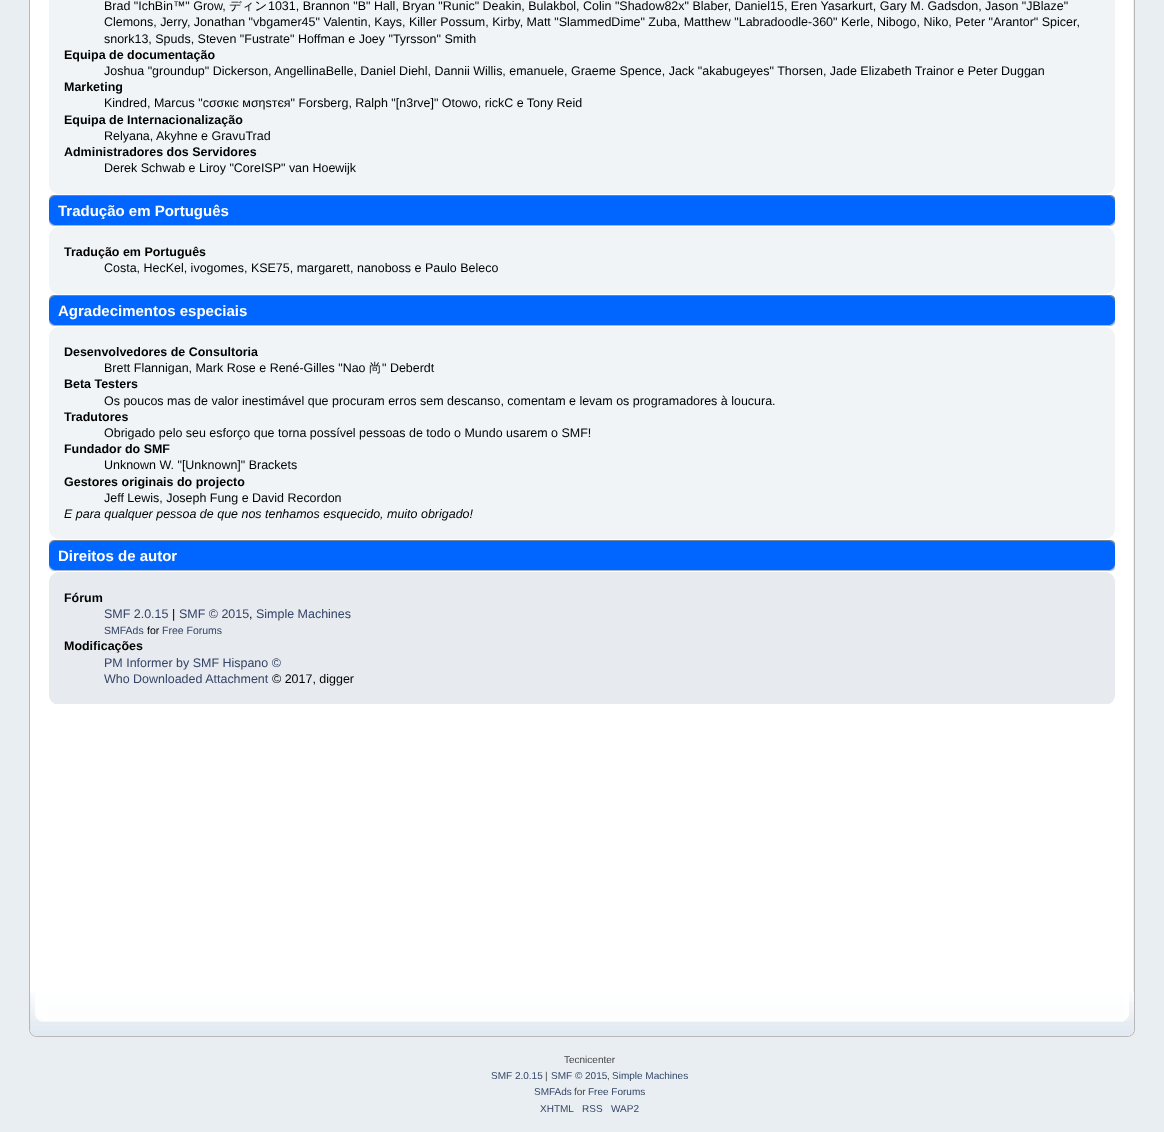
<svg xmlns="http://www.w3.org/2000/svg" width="1164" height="1132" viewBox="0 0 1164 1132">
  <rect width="100%" height="100%" fill="#e9eef2"/>
  <path d="M30 0h1103v992H30z" fill="#fff"/>
  <path d="M29 0h1v992H29z" fill="#b7b7b7"/>
  <image x="1133" y="0" width="2" height="992" href="img/1.png"/>
  <path d="M49 0h1066v194H49z" fill="#f0f4f7"/>
  <image x="49" y="186" width="8" height="8" href="img/2.png"/>
  <image x="1107" y="186" width="8" height="8" href="img/3.png"/>
  <image x="49" y="195" width="1060" height="31" href="img/4.png"/>
  <image x="1109" y="195" width="6" height="31" href="img/5.png"/>
  <path d="M49 227h1066v67H49z" fill="#f0f4f7"/>
  <image x="49" y="227" width="8" height="8" href="img/6.png"/>
  <image x="1107" y="227" width="8" height="8" href="img/7.png"/>
  <image x="49" y="286" width="8" height="8" href="img/2.png"/>
  <image x="1107" y="286" width="8" height="8" href="img/3.png"/>
  <image x="49" y="295" width="1060" height="31" href="img/4.png"/>
  <image x="1109" y="295" width="6" height="31" href="img/5.png"/>
  <path d="M49 327h1066v212H49z" fill="#f0f4f7"/>
  <image x="49" y="327" width="8" height="8" href="img/6.png"/>
  <image x="1107" y="327" width="8" height="8" href="img/7.png"/>
  <image x="49" y="531" width="8" height="8" href="img/2.png"/>
  <image x="1107" y="531" width="8" height="8" href="img/3.png"/>
  <image x="49" y="540" width="1060" height="31" href="img/4.png"/>
  <image x="1109" y="540" width="6" height="31" href="img/5.png"/>
  <path d="M49 572h1066v132H49z" fill="#e7eaef"/>
  <image x="49" y="572" width="9" height="9" href="img/8.png"/>
  <image x="1106" y="572" width="9" height="8" href="img/9.png"/>
  <image x="49" y="696" width="6" height="8" href="img/10.png"/>
  <image x="1109" y="696" width="6" height="8" href="img/11.png"/>
  <image x="29" y="992" width="1094" height="45" href="img/12.png"/>
  <image x="1123" y="992" width="12" height="45" href="img/13.png"/>
  <text x="104" y="10" font-family="Liberation Sans" font-size="12.48" fill="#000">Brad "IchBin™" Grow,</text>
  <text x="229" y="10" font-family="WenQuanYi Zen Hei" font-size="12.48" font-weight="500" fill="#000">ディン</text>
  <g font-family="Liberation Sans" font-size="12.48" fill="#000">
    <text x="268" y="10">1031, Brannon "B" Hall, Bryan "Runic" Deakin, Bulakbol, Colin "Shadow82x" Blaber, Daniel15, Eren Yasarkurt, Gary M. Gadsdon, Jason "JBlaze"</text>
    <text x="104" y="26">Clemons, Jerry, Jonathan "vbgamer45" Valentin, Kays, Killer Possum, Kirby, Matt "SlammedDime" Zuba, Matthew "Labradoodle-360" Kerle, Nibogo, Niko, Peter "Arantor" Spicer,</text>
    <text x="104" y="43">snork13, Spuds, Steven "Fustrate" Hoffman e Joey "Tyrsson" Smith</text>
  </g>
  <text x="64" y="59" font-family="Liberation Sans" font-size="12.48" font-weight="bold" fill="#000">Equipa de documentação</text>
  <text x="104" y="75" font-family="Liberation Sans" font-size="12.48" fill="#000">Joshua "groundup" Dickerson, AngellinaBelle, Daniel Diehl, Dannii Willis, emanuele, Graeme Spence, Jack "akabugeyes" Thorsen, Jade Elizabeth Trainor e Peter Duggan</text>
  <text x="64" y="91" font-family="Liberation Sans" font-size="12.48" font-weight="bold" fill="#000">Marketing</text>
  <text x="104" y="107" font-family="Liberation Sans" font-size="12.48" fill="#000">Kindred, Marcus "cσσкιє мσηѕтєя" Forsberg, Ralph "[n3rve]" Otowo, rickC e Tony Reid</text>
  <text x="64" y="124" font-family="Liberation Sans" font-size="12.48" font-weight="bold" fill="#000">Equipa de Internacionalização</text>
  <text x="104" y="140" font-family="Liberation Sans" font-size="12.48" fill="#000">Relyana, Akyhne e GravuTrad</text>
  <text x="64" y="156" font-family="Liberation Sans" font-size="12.48" font-weight="bold" fill="#000">Administradores dos Servidores</text>
  <text x="104" y="172" font-family="Liberation Sans" font-size="12.48" fill="#000">Derek Schwab e Liroy "CoreISP" van Hoewijk</text>
  <text x="58" y="216" font-family="Liberation Sans" font-size="15" font-weight="bold" fill="#fff">Tradução em Português</text>
  <text x="64" y="256" font-family="Liberation Sans" font-size="12.48" font-weight="bold" fill="#000">Tradução em Português</text>
  <text x="104" y="272" font-family="Liberation Sans" font-size="12.48" fill="#000">Costa, HecKel, ivogomes, KSE75, margarett, nanoboss e Paulo Beleco</text>
  <text x="58" y="316" font-family="Liberation Sans" font-size="15" font-weight="bold" fill="#fff">Agradecimentos especiais</text>
  <text x="64" y="356" font-family="Liberation Sans" font-size="12.48" font-weight="bold" fill="#000">Desenvolvedores de Consultoria</text>
  <text x="104" y="372" font-family="Liberation Sans" font-size="12.48" fill="#000">Brett Flannigan, Mark Rose e René-Gilles "Nao</text>
  <text x="369" y="372" font-family="WenQuanYi Zen Hei" font-size="12.48" font-weight="500" fill="#000">尚</text>
  <text x="382" y="372" font-family="Liberation Sans" font-size="12.48" fill="#000">" Deberdt</text>
  <text x="64" y="388" font-family="Liberation Sans" font-size="12.48" font-weight="bold" fill="#000">Beta Testers</text>
  <text x="104" y="405" font-family="Liberation Sans" font-size="12.48" fill="#000">Os poucos mas de valor inestimável que procuram erros sem descanso, comentam e levam os programadores à loucura.</text>
  <text x="64" y="421" font-family="Liberation Sans" font-size="12.48" font-weight="bold" fill="#000">Tradutores</text>
  <text x="104" y="437" font-family="Liberation Sans" font-size="12.48" fill="#000">Obrigado pelo seu esforço que torna possível pessoas de todo o Mundo usarem o SMF!</text>
  <text x="64" y="453" font-family="Liberation Sans" font-size="12.48" font-weight="bold" fill="#000">Fundador do SMF</text>
  <text x="104" y="469" font-family="Liberation Sans" font-size="12.48" fill="#000">Unknown W. "[Unknown]" Brackets</text>
  <text x="64" y="486" font-family="Liberation Sans" font-size="12.48" font-weight="bold" fill="#000">Gestores originais do projecto</text>
  <text x="104" y="502" font-family="Liberation Sans" font-size="12.48" fill="#000">Jeff Lewis, Joseph Fung e David Recordon</text>
  <text x="64" y="518" font-family="Liberation Sans" font-size="12.48" font-style="italic" fill="#000">E para qualquer pessoa de que nos tenhamos esquecido, muito obrigado!</text>
  <text x="58" y="561" font-family="Liberation Sans" font-size="15" font-weight="bold" fill="#fff">Direitos de autor</text>
  <text x="64" y="602" font-family="Liberation Sans" font-size="12.48" font-weight="bold" fill="#000">Fórum</text>
  <text x="104" y="618" font-family="Liberation Sans" font-size="12.48" fill="#346">SMF 2.0.15</text>
  <text x="172" y="618" font-family="Liberation Sans" font-size="12.48" fill="#000">|</text>
  <text x="179" y="618" font-family="Liberation Sans" font-size="12.48" fill="#346">SMF © 2015</text>
  <text x="249" y="618" font-family="Liberation Sans" font-size="12.48" fill="#000">,</text>
  <text x="256" y="618" font-family="Liberation Sans" font-size="12.48" fill="#346">Simple Machines</text>
  <text x="104" y="634" font-family="Liberation Sans" font-size="10.5" fill="#346">SMFAds</text>
  <text x="147" y="634" font-family="Liberation Sans" font-size="10.5" fill="#000">for</text>
  <text x="162" y="634" font-family="Liberation Sans" font-size="10.5" fill="#346">Free Forums</text>
  <text x="64" y="650" font-family="Liberation Sans" font-size="12.48" font-weight="bold" fill="#000">Modificações</text>
  <g font-family="Liberation Sans" font-size="12.48" fill="#346">
    <text x="104" y="667">PM Informer by SMF Hispano ©</text>
    <text x="104" y="683">Who Downloaded Attachment</text>
  </g>
  <text x="272" y="683" font-family="Liberation Sans" font-size="12.48" fill="#000">© 2017, digger</text>
  <text x="564" y="1063" font-family="Liberation Sans" font-size="10" fill="#444">Tecnicenter</text>
  <text x="491" y="1079" font-family="Liberation Sans" font-size="10" fill="#346">SMF 2.0.15</text>
  <text x="545" y="1079" font-family="Liberation Sans" font-size="10" fill="#444">|</text>
  <text x="551" y="1079" font-family="Liberation Sans" font-size="10" fill="#346">SMF © 2015</text>
  <text x="607" y="1079" font-family="Liberation Sans" font-size="10" fill="#444">,</text>
  <g font-family="Liberation Sans" font-size="10" fill="#346">
    <text x="612" y="1079">Simple Machines</text>
    <text x="534" y="1095">SMFAds</text>
  </g>
  <text x="574" y="1095" font-family="Liberation Sans" font-size="10" fill="#444">for</text>
  <g font-family="Liberation Sans" font-size="10" fill="#346">
    <text x="588" y="1095">Free Forums</text>
    <text x="540" y="1112">XHTML</text>
    <text x="582" y="1112">RSS</text>
    <text x="611" y="1112">WAP2</text>
  </g>
</svg>
